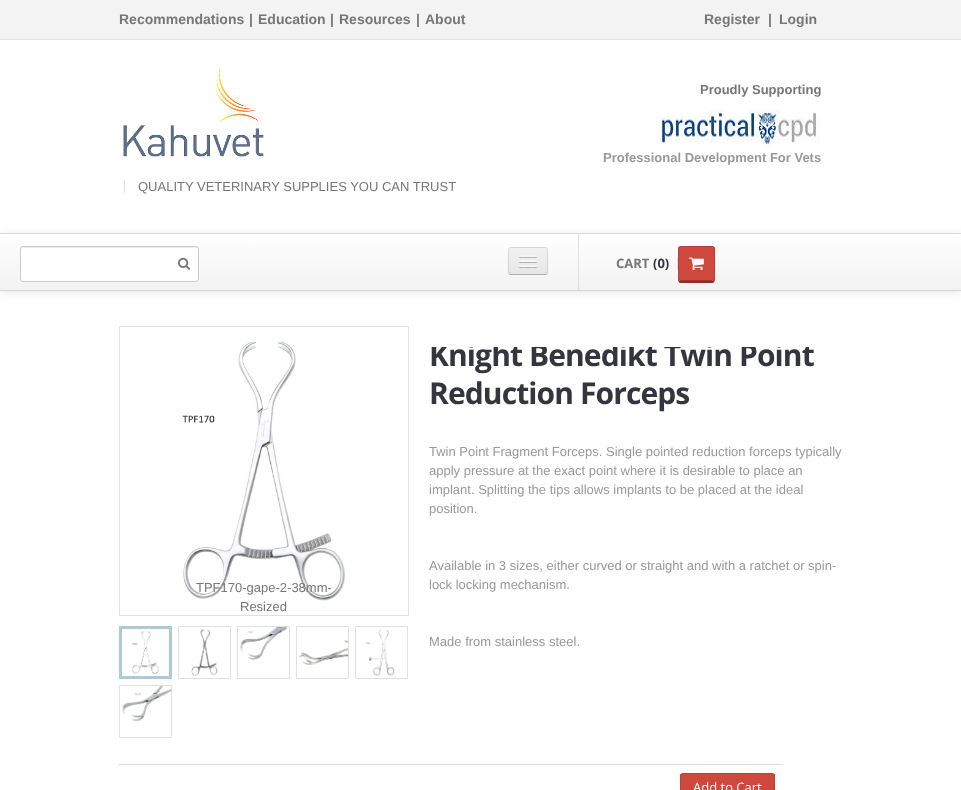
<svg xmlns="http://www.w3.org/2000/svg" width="961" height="790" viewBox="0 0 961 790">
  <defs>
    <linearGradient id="g1" gradientUnits="userSpaceOnUse" x1="481" y1="234" x2="481" y2="290"><stop offset="0" stop-color="#fff"/><stop offset="1" stop-color="#f2f2f2"/></linearGradient>
    <clipPath id="clip1"><rect x="508" y="247" width="40" height="28" rx="3"/></clipPath>
    <linearGradient id="g2" gradientUnits="userSpaceOnUse" x1="528" y1="248" x2="528" y2="274"><stop offset="0" stop-color="#f2f2f2"/><stop offset="1" stop-color="#e6e6e6"/></linearGradient>
    <clipPath id="clip2"><rect x="678" y="246" width="37" height="35" rx="3"/></clipPath>
    <clipPath id="clip3"><rect x="680" y="773" width="95" height="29" rx="3"/></clipPath>
  </defs>
  <rect width="100%" height="100%" fill="#fff"/>
  <path d="M0 233h961v1H0z" fill="#e0e0e0"/>
  <path d="M0 0h961v39H0z" fill="#f3f3f3"/>
  <path d="M0 39h961v1H0z" fill="#e0e0e0"/>
  <image x="660" y="109" width="160" height="39" href="img/1.png"/>
  <image x="123" y="67" width="141" height="90" href="img/2.png"/>
  <path d="M124 180h1v13H124z" fill="#e0e0e0"/>
  <path d="M0 235h961v57H0z" fill="#0000001a" filter="blur(5px)"/>
  <path d="M0 234h961v56H0z" fill="url(#g1)"/>
  <path d="M0 290h961v1H0z" fill="#d4d4d4"/>
  <rect x="20" y="246" width="179" height="36" rx="3" fill="#fff"/>
  <path d="M23 248H196C197 248 198 249 198 250C198 249 198 247 196 247H22C21 248 21 249 21 250C21 249 22 248 23 248Z" fill="#ececec"/>
  <rect x="20.5" y="246.5" width="178" height="35" rx="2.5" fill="none" stroke="#ccc"/>
  <image x="178" y="257" width="12" height="13" href="img/3.png"/>
  <rect x="508" y="247" width="40" height="28" rx="3" fill="#ededed"/>
  <g clip-path="url(#clip1)">
    <path d="M508 248h40v26H508z" fill="url(#g2)"/>
  </g>
  <path d="M547 274L545 274.5H511L509 274" fill="none" stroke="#00000040"/>
  <path d="M509 274C508 272.5 508.5 269.5 508.5 268.5V253.5C508.5 246.5 509 247.5 516.5 247.5H539.5C547 247.5 547.5 246.5 547.5 253.5V268.5C547.5 269.5 548 272.5 547 274" fill="none" stroke="#0000001a"/>
  <path d="M519 256.5C518 258.5 522.5 258 522.5 258H533.5C533.5 258 538 258.5 537 256.5C536 257.5 529.5 257 528 257C526.5 257 520 257.5 519 256.5Z" fill="#b3b3b3"/>
  <rect x="519" y="255" width="18" height="2" rx="1" fill="#f5f5f5"/>
  <path d="M519 261.5C518 263.5 522.5 263 522.5 263H533.5C533.5 263 538 263.5 537 261.5C536 262.5 529.5 262 528 262C526.5 262 520 262.5 519 261.5Z" fill="#b0b0b0"/>
  <rect x="519" y="260" width="18" height="2" rx="1" fill="#f5f5f5"/>
  <path d="M519 266.5C518 268.5 522.5 268 522.5 268H533.5C533.5 268 538 268.5 537 266.5C536 267.5 529.5 267 528 267C526.5 267 520 267.5 519 266.5Z" fill="#afafaf"/>
  <rect x="519" y="265" width="18" height="2" rx="1" fill="#f5f5f5"/>
  <path d="M578 234h1v56H578z" fill="#e0e0e0"/>
  <path d="M677 257h1v13H677z" fill="#e0e0e0"/>
  <path d="M678 278C678 284 680.5 283 686 283H707C712.5 283 715 284 715 278C715 279.5 713.5 281 712 281H681C679.5 281 678 279.5 678 278Z" fill="#902d24"/>
  <rect x="678" y="246" width="37" height="35" rx="3" fill="#ce483d"/>
  <g clip-path="url(#clip2)">
    <path d="M678 247h37v33H678z" fill="#ce483d"/>
  </g>
  <path d="M714 280C713.5 280 712.5 280.5 712 280.5H681C680.5 280.5 679.5 280 679 280" fill="none" stroke="#00000040"/>
  <path d="M679 280C677.5 278.5 678.5 274.5 678.5 273V254C678.5 246 678 246.5 686 246.5H707C715 246.5 714.5 246 714.5 254V273C714.5 274.5 715.5 278.5 714 280" fill="none" stroke="#0000001a"/>
  <image x="689" y="257" width="15" height="14" href="img/4.png"/>
  <path d="M119.5 326.5h289v289H119.5z" fill="none" stroke="#e0e0e0"/>
  <image x="182" y="341" width="163" height="260" href="img/5.png"/>
  <path d="M120.5 627.5h50v50H120.5z" fill="none" stroke="#abcbd6" stroke-width="3"/>
  <image x="132" y="631" width="27" height="43" href="img/6.png"/>
  <path d="M178.5 626.5h52v52H178.5z" fill="none" stroke="#e0e0e0"/>
  <image x="191" y="629" width="27" height="47" href="img/7.png"/>
  <path d="M237.5 626.5h52v52H237.5z" fill="none" stroke="#e0e0e0"/>
  <image x="240" y="627" width="47" height="33" href="img/8.png"/>
  <path d="M296.5 626.5h52v52H296.5z" fill="none" stroke="#e0e0e0"/>
  <image x="299" y="640" width="49" height="25" href="img/9.png"/>
  <path d="M355.5 626.5h52v52H355.5z" fill="none" stroke="#e0e0e0"/>
  <image x="365" y="629" width="30" height="47" href="img/10.png"/>
  <path d="M119.5 685.5h52v52H119.5z" fill="none" stroke="#e0e0e0"/>
  <image x="122" y="686" width="49" height="36" href="img/11.png"/>
  <path d="M118 764h665v1H118z" fill="#ddd"/>
  <rect x="680" y="773" width="95" height="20" rx="3" fill="#ce483d"/>
  <g clip-path="url(#clip3)">
    <path d="M680 774h95v16H680z" fill="#ce483d"/>
  </g>
  <path d="M681 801C679.5 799 680.5 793.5 680.5 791.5C680.5 770 676.5 773.5 698 773.5H757C778.5 773.5 774.5 770 774.5 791.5C774.5 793.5 775.5 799 774 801" fill="none" stroke="#0000001a"/>
  <g font-family="Liberation Sans" font-size="14" font-weight="bold" fill="#777">
    <text x="119" y="24">Recommendations</text>
    <text x="249" y="24">|</text>
    <text x="258" y="24">Education</text>
    <text x="330" y="24">|</text>
    <text x="339" y="24">Resources</text>
    <text x="416" y="24">|</text>
    <text x="425" y="24">About</text>
    <text x="704" y="24">Register</text>
    <text x="768" y="24">|</text>
    <text x="779" y="24">Login</text>
  </g>
  <text x="700" y="94" font-family="Liberation Sans" font-size="13" font-weight="bold" fill="#777">Proudly Supporting</text>
  <text x="603" y="162" font-family="Liberation Sans" font-size="13" font-weight="bold" fill="#999">Professional Development For Vets</text>
  <text x="138" y="191" font-family="Liberation Sans" font-size="13" fill="#777">QUALITY VETERINARY SUPPLIES YOU CAN TRUST</text>
  <text x="616" y="268" font-family="Open Sans" font-size="13" font-weight="bold" fill="#777">CART</text>
  <text x="653" y="268" font-family="Open Sans" font-size="13" font-weight="bold" fill="#34353e">(0)</text>
  <g font-family="Liberation Sans" font-size="13" fill="#777">
    <text x="196" y="592">TPF170-gape-2-38mm-</text>
    <text x="240" y="611">Resized</text>
  </g>
  <g font-family="Open Sans" font-size="30" font-weight="bold" letter-spacing="-0.9" fill="#34353e">
    <text x="429" y="366">Knight Benedikt Twin Point</text>
    <text x="429" y="404">Reduction Forceps</text>
  </g>
  <g font-family="Liberation Sans" font-size="13" fill="#999">
    <text x="429" y="456">Twin Point Fragment Forceps. Single pointed reduction forceps typically</text>
    <text x="429" y="475">apply pressure at the exact point where it is desirable to place an</text>
    <text x="429" y="494">implant. Splitting the tips allows implants to be placed at the ideal</text>
    <text x="429" y="513">position.</text>
    <text x="429" y="570">Available in 3 sizes, either curved or straight and with a ratchet or spin-</text>
    <text x="429" y="589">lock locking mechanism.</text>
    <text x="429" y="646">Made from stainless steel.</text>
  </g>
  <text x="693" y="792" font-family="Open Sans" font-size="13" fill="#fff">Add to Cart</text>
  <path d="M431 343h378v4H431z" fill="#fff"/>
</svg>
